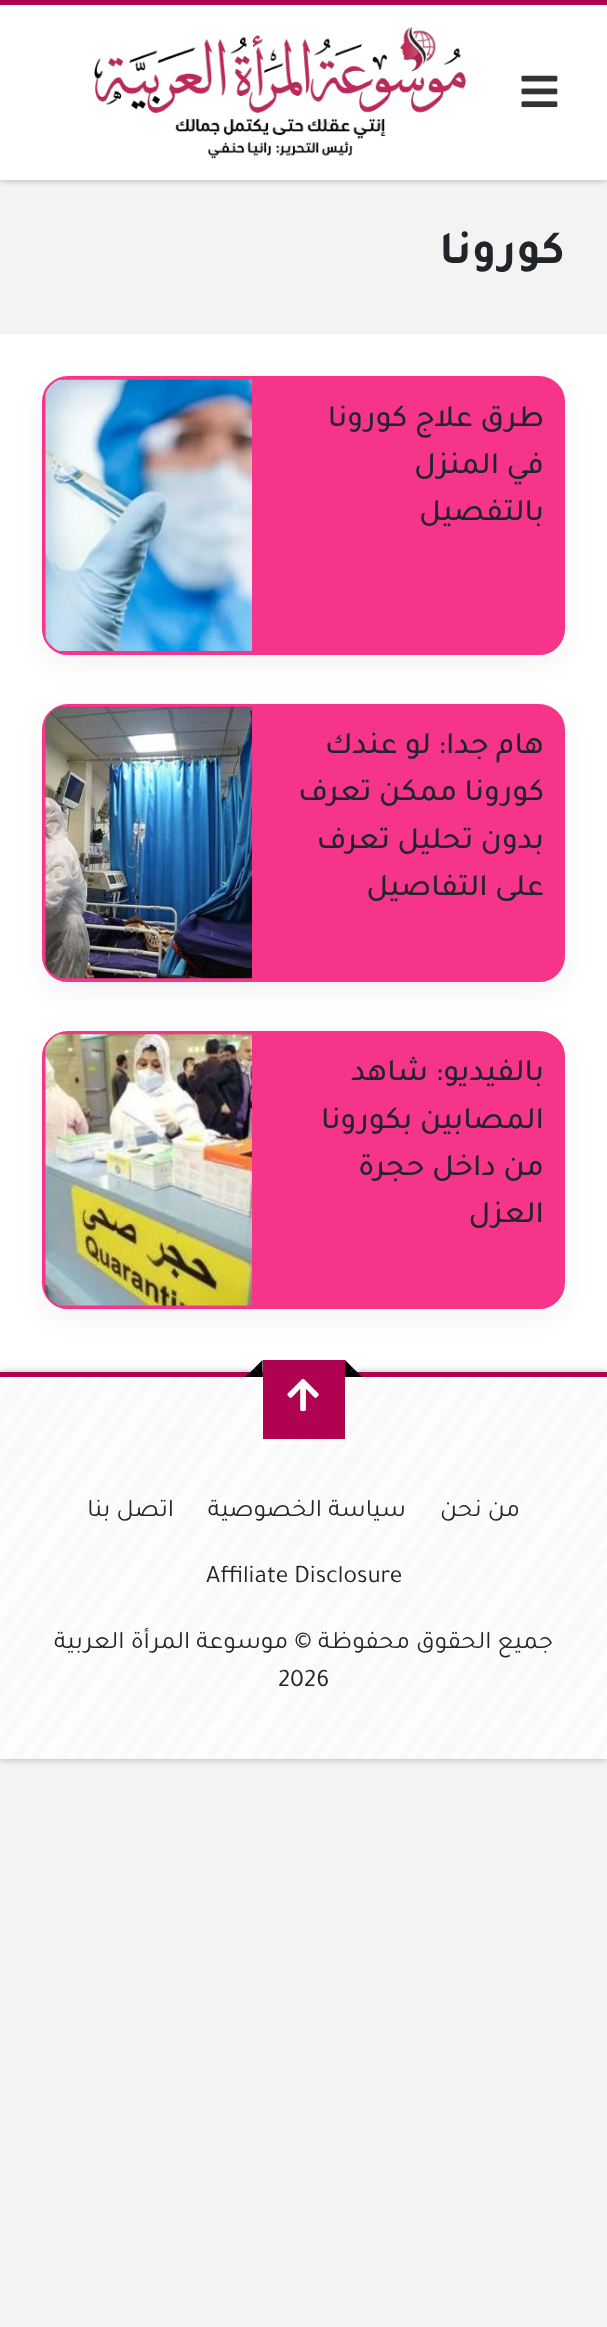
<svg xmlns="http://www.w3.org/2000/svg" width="607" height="2327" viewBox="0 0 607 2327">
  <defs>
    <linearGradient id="g1" gradientUnits="userSpaceOnUse" x1="597" y1="1773" x2="9" y2="1362"><stop offset="0" stop-color="#fdfdfd"/><stop offset="0.01" stop-color="#fdfdfd"/><stop offset="0.01" stop-color="#f9f9f9"/><stop offset="0.02" stop-color="#f9f9f9"/><stop offset="0.02" stop-color="#fdfdfd"/><stop offset="0.04" stop-color="#fdfdfd"/><stop offset="0.04" stop-color="#f9f9f9"/><stop offset="0.05" stop-color="#f9f9f9"/><stop offset="0.05" stop-color="#fdfdfd"/><stop offset="0.06" stop-color="#fdfdfd"/><stop offset="0.06" stop-color="#f9f9f9"/><stop offset="0.07" stop-color="#f9f9f9"/><stop offset="0.07" stop-color="#fdfdfd"/><stop offset="0.09" stop-color="#fdfdfd"/><stop offset="0.09" stop-color="#f9f9f9"/><stop offset="0.1" stop-color="#f9f9f9"/><stop offset="0.1" stop-color="#fdfdfd"/><stop offset="0.11" stop-color="#fdfdfd"/><stop offset="0.11" stop-color="#f9f9f9"/><stop offset="0.12" stop-color="#f9f9f9"/><stop offset="0.12" stop-color="#fdfdfd"/><stop offset="0.13" stop-color="#fdfdfd"/><stop offset="0.13" stop-color="#f9f9f9"/><stop offset="0.15" stop-color="#f9f9f9"/><stop offset="0.15" stop-color="#fdfdfd"/><stop offset="0.16" stop-color="#fdfdfd"/><stop offset="0.16" stop-color="#f9f9f9"/><stop offset="0.17" stop-color="#f9f9f9"/><stop offset="0.17" stop-color="#fdfdfd"/><stop offset="0.18" stop-color="#fdfdfd"/><stop offset="0.18" stop-color="#f9f9f9"/><stop offset="0.2" stop-color="#f9f9f9"/><stop offset="0.2" stop-color="#fdfdfd"/><stop offset="0.21" stop-color="#fdfdfd"/><stop offset="0.21" stop-color="#f9f9f9"/><stop offset="0.22" stop-color="#f9f9f9"/><stop offset="0.22" stop-color="#fdfdfd"/><stop offset="0.23" stop-color="#fdfdfd"/><stop offset="0.23" stop-color="#f9f9f9"/><stop offset="0.24" stop-color="#f9f9f9"/><stop offset="0.24" stop-color="#fdfdfd"/><stop offset="0.26" stop-color="#fdfdfd"/><stop offset="0.26" stop-color="#f9f9f9"/><stop offset="0.27" stop-color="#f9f9f9"/><stop offset="0.27" stop-color="#fdfdfd"/><stop offset="0.28" stop-color="#fdfdfd"/><stop offset="0.28" stop-color="#f9f9f9"/><stop offset="0.29" stop-color="#f9f9f9"/><stop offset="0.29" stop-color="#fdfdfd"/><stop offset="0.3" stop-color="#fdfdfd"/><stop offset="0.3" stop-color="#f9f9f9"/><stop offset="0.32" stop-color="#f9f9f9"/><stop offset="0.32" stop-color="#fdfdfd"/><stop offset="0.33" stop-color="#fdfdfd"/><stop offset="0.33" stop-color="#f9f9f9"/><stop offset="0.34" stop-color="#f9f9f9"/><stop offset="0.34" stop-color="#fdfdfd"/><stop offset="0.35" stop-color="#fdfdfd"/><stop offset="0.35" stop-color="#f9f9f9"/><stop offset="0.37" stop-color="#f9f9f9"/><stop offset="0.37" stop-color="#fdfdfd"/><stop offset="0.38" stop-color="#fdfdfd"/><stop offset="0.38" stop-color="#f9f9f9"/><stop offset="0.39" stop-color="#f9f9f9"/><stop offset="0.39" stop-color="#fdfdfd"/><stop offset="0.4" stop-color="#fdfdfd"/><stop offset="0.4" stop-color="#f9f9f9"/><stop offset="0.41" stop-color="#f9f9f9"/><stop offset="0.41" stop-color="#fdfdfd"/><stop offset="0.43" stop-color="#fdfdfd"/><stop offset="0.43" stop-color="#f9f9f9"/><stop offset="0.44" stop-color="#f9f9f9"/><stop offset="0.44" stop-color="#fdfdfd"/><stop offset="0.45" stop-color="#fdfdfd"/><stop offset="0.45" stop-color="#f9f9f9"/><stop offset="0.46" stop-color="#f9f9f9"/><stop offset="0.46" stop-color="#fdfdfd"/><stop offset="0.48" stop-color="#fdfdfd"/><stop offset="0.48" stop-color="#f9f9f9"/><stop offset="0.49" stop-color="#f9f9f9"/><stop offset="0.49" stop-color="#fdfdfd"/><stop offset="0.5" stop-color="#fdfdfd"/><stop offset="0.5" stop-color="#f9f9f9"/><stop offset="0.51" stop-color="#f9f9f9"/><stop offset="0.51" stop-color="#fdfdfd"/><stop offset="0.52" stop-color="#fdfdfd"/><stop offset="0.52" stop-color="#f9f9f9"/><stop offset="0.54" stop-color="#f9f9f9"/><stop offset="0.54" stop-color="#fdfdfd"/><stop offset="0.55" stop-color="#fdfdfd"/><stop offset="0.55" stop-color="#f9f9f9"/><stop offset="0.56" stop-color="#f9f9f9"/><stop offset="0.56" stop-color="#fdfdfd"/><stop offset="0.57" stop-color="#fdfdfd"/><stop offset="0.57" stop-color="#f9f9f9"/><stop offset="0.59" stop-color="#f9f9f9"/><stop offset="0.59" stop-color="#fdfdfd"/><stop offset="0.6" stop-color="#fdfdfd"/><stop offset="0.6" stop-color="#f9f9f9"/><stop offset="0.61" stop-color="#f9f9f9"/><stop offset="0.61" stop-color="#fdfdfd"/><stop offset="0.62" stop-color="#fdfdfd"/><stop offset="0.62" stop-color="#f9f9f9"/><stop offset="0.63" stop-color="#f9f9f9"/><stop offset="0.63" stop-color="#fdfdfd"/><stop offset="0.65" stop-color="#fdfdfd"/><stop offset="0.65" stop-color="#f9f9f9"/><stop offset="0.66" stop-color="#f9f9f9"/><stop offset="0.66" stop-color="#fdfdfd"/><stop offset="0.67" stop-color="#fdfdfd"/><stop offset="0.67" stop-color="#f9f9f9"/><stop offset="0.68" stop-color="#f9f9f9"/><stop offset="0.68" stop-color="#fdfdfd"/><stop offset="0.7" stop-color="#fdfdfd"/><stop offset="0.7" stop-color="#f9f9f9"/><stop offset="0.71" stop-color="#f9f9f9"/><stop offset="0.71" stop-color="#fdfdfd"/><stop offset="0.72" stop-color="#fdfdfd"/><stop offset="0.72" stop-color="#f9f9f9"/><stop offset="0.73" stop-color="#f9f9f9"/><stop offset="0.73" stop-color="#fdfdfd"/><stop offset="0.74" stop-color="#fdfdfd"/><stop offset="0.74" stop-color="#f9f9f9"/><stop offset="0.76" stop-color="#f9f9f9"/><stop offset="0.76" stop-color="#fdfdfd"/><stop offset="0.77" stop-color="#fdfdfd"/><stop offset="0.77" stop-color="#f9f9f9"/><stop offset="0.78" stop-color="#f9f9f9"/><stop offset="0.78" stop-color="#fdfdfd"/><stop offset="0.79" stop-color="#fdfdfd"/><stop offset="0.79" stop-color="#f9f9f9"/><stop offset="0.8" stop-color="#f9f9f9"/><stop offset="0.8" stop-color="#fdfdfd"/><stop offset="0.82" stop-color="#fdfdfd"/><stop offset="0.82" stop-color="#f9f9f9"/><stop offset="0.83" stop-color="#f9f9f9"/><stop offset="0.83" stop-color="#fdfdfd"/><stop offset="0.84" stop-color="#fdfdfd"/><stop offset="0.84" stop-color="#f9f9f9"/><stop offset="0.85" stop-color="#f9f9f9"/><stop offset="0.85" stop-color="#fdfdfd"/><stop offset="0.87" stop-color="#fdfdfd"/><stop offset="0.87" stop-color="#f9f9f9"/><stop offset="0.88" stop-color="#f9f9f9"/><stop offset="0.88" stop-color="#fdfdfd"/><stop offset="0.89" stop-color="#fdfdfd"/><stop offset="0.89" stop-color="#f9f9f9"/><stop offset="0.9" stop-color="#f9f9f9"/><stop offset="0.9" stop-color="#fdfdfd"/><stop offset="0.91" stop-color="#fdfdfd"/><stop offset="0.91" stop-color="#f9f9f9"/><stop offset="0.93" stop-color="#f9f9f9"/><stop offset="0.93" stop-color="#fdfdfd"/><stop offset="0.94" stop-color="#fdfdfd"/><stop offset="0.94" stop-color="#f9f9f9"/><stop offset="0.95" stop-color="#f9f9f9"/><stop offset="0.95" stop-color="#fdfdfd"/><stop offset="0.96" stop-color="#fdfdfd"/><stop offset="0.96" stop-color="#f9f9f9"/><stop offset="0.98" stop-color="#f9f9f9"/><stop offset="0.98" stop-color="#fdfdfd"/><stop offset="0.99" stop-color="#fdfdfd"/><stop offset="0.99" stop-color="#f9f9f9"/><stop offset="1" stop-color="#f9f9f9"/></linearGradient>
  </defs>
  <rect width="100%" height="100%" fill="#f3f3f3"/>
  <path d="M0 0h607v180H0z" fill="#0000004d" filter="blur(3.5px)"/>
  <path d="M0 0h607v5H0z" fill="#af0351"/>
  <path d="M0 5h607v175H0z" fill="#fff"/>
  <image x="521" y="75" width="37" height="33" href="img/1.png"/>
  <image x="94" y="26" width="372" height="133" href="img/2.png"/>
  <path d="M0 334h607v1038H0z" fill="#fff"/>
  <rect x="42" y="385" width="523" height="278" rx="26" fill="#0000000d" filter="blur(13px)"/>
  <rect x="43" y="377" width="521" height="277" rx="25" fill="#f6358a" stroke="#f6358a" stroke-width="2"/>
  <image x="45" y="379" width="207" height="272" href="img/3.png"/>
  <rect x="42" y="712" width="523" height="279" rx="26" fill="#0000000d" filter="blur(13px)"/>
  <rect x="43" y="705" width="521" height="276" rx="25" fill="#f6358a" stroke="#f6358a" stroke-width="2"/>
  <image x="45" y="707" width="207" height="272" href="img/4.png"/>
  <rect x="42" y="1040" width="523" height="278" rx="26" fill="#0000000d" filter="blur(13px)"/>
  <rect x="43" y="1032" width="521" height="276" rx="25" fill="#f6358a" stroke="#f6358a" stroke-width="2"/>
  <image x="45" y="1034" width="207" height="272" href="img/5.png"/>
  <path d="M0 1372h607v387H0z" fill="#0000004d" filter="blur(3.5px)"/>
  <path d="M0 1377h607v382H0z" fill="url(#g1)"/>
  <path d="M0 1372h607v5H0z" fill="#af0351"/>
  <path d="M263 1360h82v79H263z" fill="#af0351"/>
  <path d="M362 1377H345L353.5 1368.5Z" fill="#000"/>
  <path d="M345 1377V1360L353.5 1368.5Z" fill="#000"/>
  <path d="M262.5 1360V1377L254 1368.5Z" fill="#000"/>
  <path d="M262.5 1377H245L254 1368.5Z" fill="#000"/>
  <image x="287" y="1378" width="32" height="34" href="img/6.png"/>
  <text x="565" y="263" font-family="Tajawal" font-size="47" font-weight="bold" direction="rtl" fill="#212529">كورونا</text>
  <g font-family="Tajawal" font-size="31.5" font-weight="500" direction="rtl" fill="#212529">
    <text x="544" y="426">طرق علاج كورونا</text>
    <text x="544" y="473">في المنزل</text>
    <text x="544" y="520">بالتفصيل</text>
    <text x="544" y="753">هام جدا: لو عندك</text>
    <text x="544" y="800">كورونا ممكن تعرف</text>
    <text x="544" y="848">بدون تحليل تعرف</text>
    <text x="544" y="895">على التفاصيل</text>
    <text x="544" y="1080">بالفيديو: شاهد</text>
    <text x="544" y="1128">المصابين بكورونا</text>
    <text x="544" y="1175">من داخل حجرة</text>
    <text x="544" y="1222">العزل</text>
  </g>
  <g font-family="Tajawal" font-size="25.25" direction="rtl" fill="#212529">
    <text x="520" y="1516">من نحن</text>
    <text x="406" y="1516">سياسة الخصوصية</text>
    <text x="174" y="1516">اتصل بنا</text>
  </g>
  <text x="206" y="1582" font-family="Tajawal" font-size="25.25" fill="#212529">Affiliate Disclosure</text>
  <text x="553" y="1648" font-family="Tajawal" font-size="25.25" direction="rtl" fill="#212529">جميع الحقوق محفوظة © موسوعة المرأة العربية</text>
  <text x="278" y="1686" font-family="Tajawal" font-size="25.25" fill="#212529">2026</text>
</svg>
